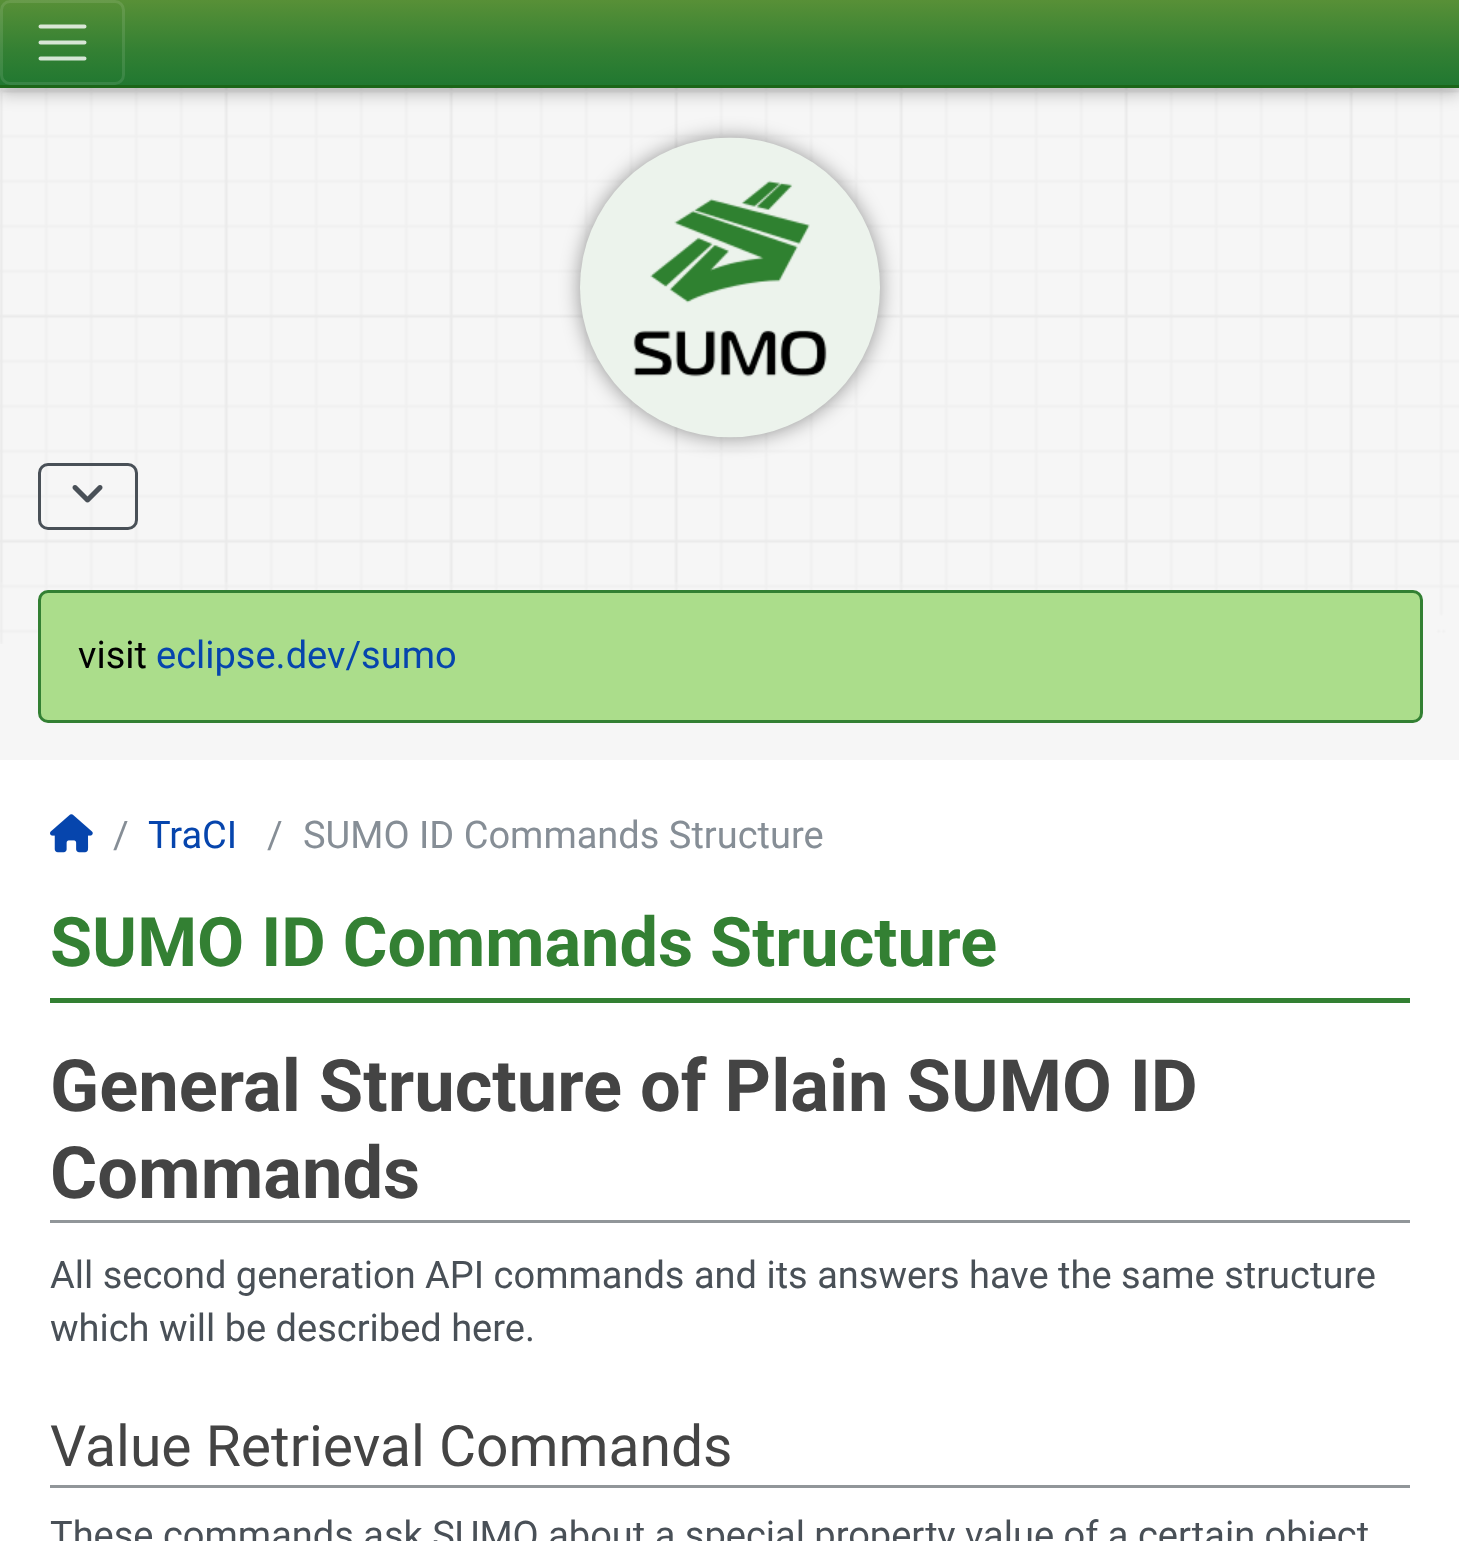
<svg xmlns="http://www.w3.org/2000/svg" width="1459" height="1541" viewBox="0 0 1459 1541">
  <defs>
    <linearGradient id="g1" gradientUnits="userSpaceOnUse" x1="730" y1="0" x2="730" y2="85"><stop offset="0" stop-color="#589037"/><stop offset="0.6" stop-color="#338033"/><stop offset="1" stop-color="#217831"/></linearGradient>
  </defs>
  <rect width="100%" height="100%" fill="#f6f6f6"/>
  <image x="0" y="88" width="1459" height="556" href="img/1.png"/>
  <path d="M0 8h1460v87H0z" fill="#00000033" filter="blur(8px)"/>
  <path d="M0 0h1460v88H0z" fill="#0000001a" filter="blur(4px)"/>
  <path d="M0 0h1459v85H0z" fill="url(#g1)"/>
  <path d="M0 85h1459v3H0z" fill="#1b6618"/>
  <rect x="1.5" y="1.5" width="122" height="82" rx="8.5" fill="none" stroke="#ffffff1a" stroke-width="3"/>
  <path d="M40.5 26.5H84.5M40.5 42.5H84.5M40.5 58.5H84.5" fill="none" stroke="#ffffffcc" stroke-width="4" stroke-linecap="round"/>
  <rect x="580" y="138" width="300" height="300" rx="150" fill="#00000066" filter="blur(10px)"/>
  <image x="580" y="137" width="300" height="301" href="img/2.png"/>
  <rect x="39.5" y="464.5" width="97" height="64" rx="8.5" fill="none" stroke="#495057" stroke-width="3"/>
  <image x="72" y="485" width="31" height="18" href="img/3.png"/>
  <rect x="39.5" y="591.5" width="1382" height="130" rx="8.5" fill="#abdd8b" stroke="#338033" stroke-width="3"/>
  <path d="M0 760h1459v781H0z" fill="#fff"/>
  <image x="50" y="814" width="43" height="39" href="img/4.png"/>
  <path d="M50 998h1360v5H50z" fill="#338033"/>
  <path d="M50 1220h1360v3H50z" fill="#919699"/>
  <path d="M50 1485h1360v3H50z" fill="#919699"/>
  <text x="78" y="668" font-family="Roboto" font-size="38" fill="#000">visit</text>
  <text x="156" y="668" font-family="Roboto" font-size="38" fill="#0645ad">eclipse.dev/sumo</text>
  <text x="113" y="848" font-family="Roboto" font-size="38" fill="#868e96">/</text>
  <text x="148" y="848" font-family="Roboto" font-size="38" fill="#0645ad">TraCI</text>
  <g font-family="Roboto" font-size="38" fill="#868e96">
    <text x="267" y="848">/</text>
    <text x="303" y="848">SUMO ID Commands Structure</text>
  </g>
  <text x="50" y="966" font-family="Roboto" font-size="68.4" font-weight="bold" fill="#338033">SUMO ID Commands Structure</text>
  <g font-family="Roboto" font-size="72.25" font-weight="bold" fill="#444">
    <text x="50" y="1111">General Structure of Plain SUMO ID</text>
    <text x="50" y="1198">Commands</text>
  </g>
  <g font-family="Roboto" font-size="38" fill="#495057">
    <text x="50" y="1288">All second generation API commands and its answers have the same structure</text>
    <text x="50" y="1341">which will be described here.</text>
  </g>
  <text x="50" y="1466" font-family="Roboto" font-size="57" fill="#444">Value Retrieval Commands</text>
  <text x="50" y="1548" font-family="Roboto" font-size="38" fill="#495057">These commands ask SUMO about a special property value of a certain object</text>
</svg>
